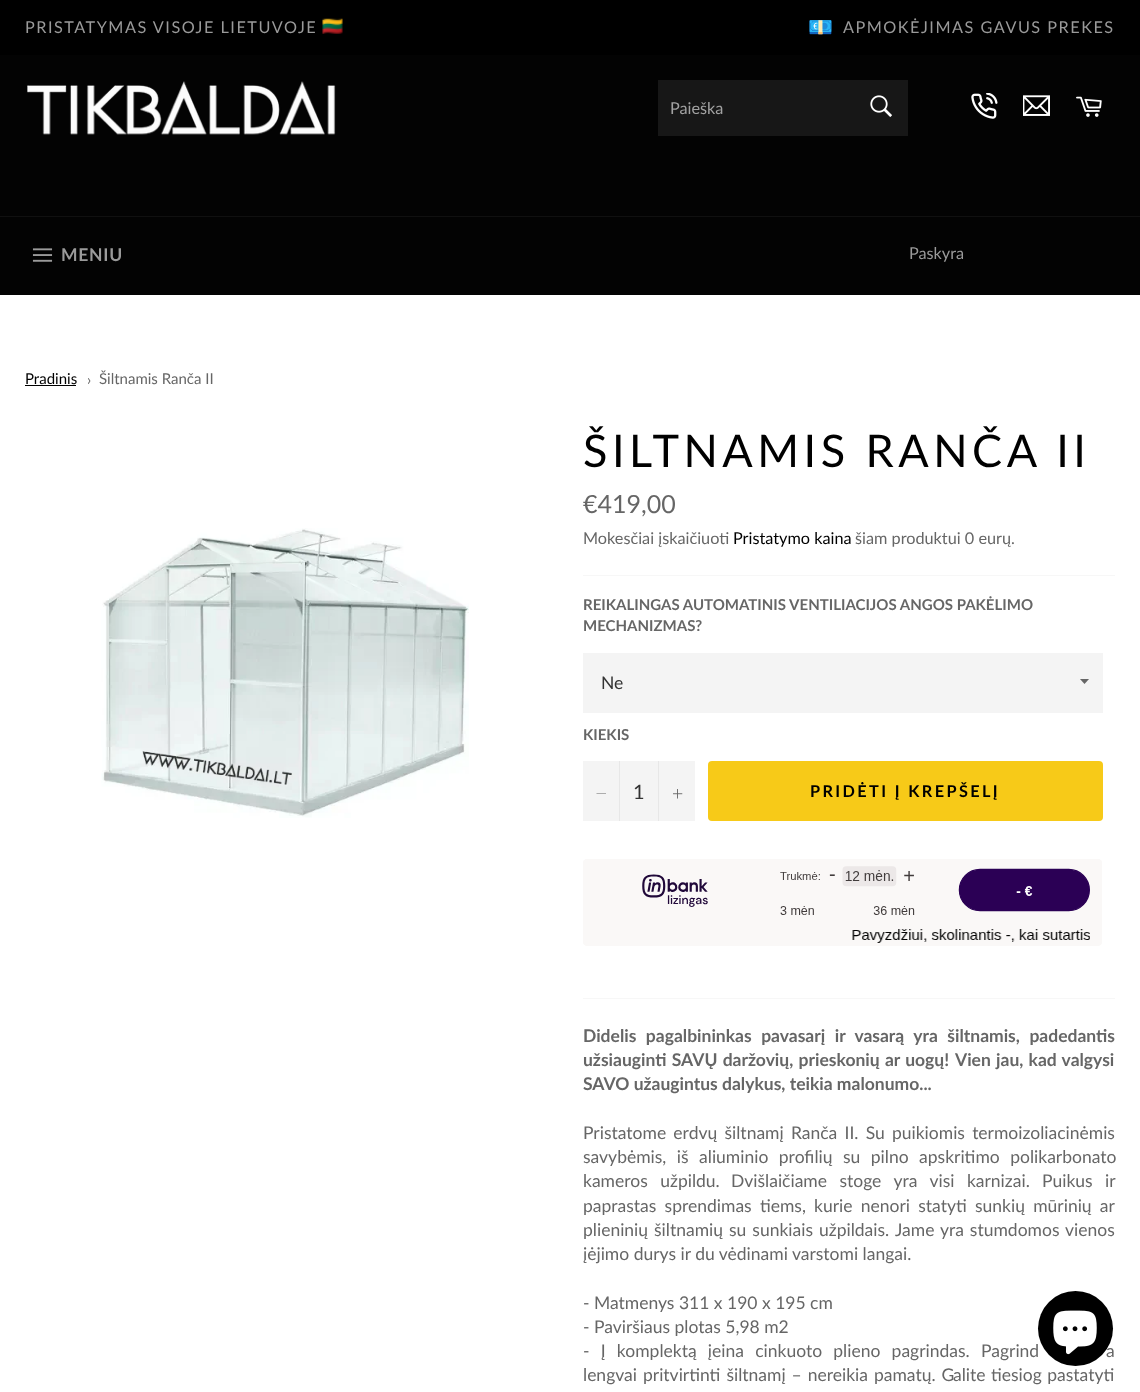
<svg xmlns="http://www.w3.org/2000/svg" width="1140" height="1392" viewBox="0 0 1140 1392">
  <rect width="100%" height="100%" fill="#030303"/>
  <path d="M0 0h1140v55H0z" fill="#000"/>
  <image x="322" y="18" width="21" height="16" href="img/1.png"/>
  <image x="27" y="81" width="309" height="54" href="img/2.png"/>
  <path d="M658 80h250v56H658z" fill="#171717"/>
  <image x="870" y="95" width="22" height="22" href="img/3.png"/>
  <image x="971" y="93" width="27" height="26" href="img/4.png"/>
  <image x="1023" y="95" width="27" height="21" href="img/5.png"/>
  <image x="1076" y="96" width="26" height="21" href="img/6.png"/>
  <path d="M0 216h1140v1H0z" fill="#101010"/>
  <image x="32" y="248" width="21" height="14" href="img/7.png"/>
  <path d="M0 295h1140v1097H0z" fill="#fff"/>
  <path d="M25 385h51v1H25z" fill="#000"/>
  <image x="101" y="528" width="368" height="290" href="img/8.png"/>
  <path d="M583 575h532v1H583z" fill="#f7f7f7"/>
  <path d="M583 653h520v60H583z" fill="#f4f4f4"/>
  <path d="M1080 679L1084.5 684L1089 679Z" fill="#666"/>
  <path d="M583 761h112v60H583z" fill="#f4f4f4"/>
  <path d="M619 761h1v60H619z" fill="#e7e7e7"/>
  <path d="M606 793.5V794H596.5V793.5Z" fill="#666" fill-rule="evenodd"/>
  <path d="M658 761h1v60H658z" fill="#e7e7e7"/>
  <image x="673" y="789" width="10" height="10" href="img/9.png"/>
  <rect x="708" y="761" width="395" height="60" rx="4" fill="#f7ca18"/>
  <image x="583" y="859" width="519" height="87" href="img/10.png"/>
  <path d="M583 998h532v1H583z" fill="#f7f7f7"/>
  <text x="25" y="33" font-family="Lato" font-size="16.25" letter-spacing="1.5" fill="#9a9a9a">PRISTATYMAS VISOJE LIETUVOJE</text>
  <text x="808" y="34" font-family="Noto Color Emoji" font-size="20" fill="#666">💶</text>
  <text x="843" y="33" font-family="Lato" font-size="16.25" letter-spacing="1.5" fill="#9a9a9a">APMOKĖJIMAS GAVUS PREKES</text>
  <text x="670" y="114" font-family="Lato" font-size="16.25" fill="#a2a2a2">Paieška</text>
  <text x="61" y="261" font-family="Lato" font-size="17.5" font-weight="bold" letter-spacing="0.75" fill="#9a9a9a">MENIU</text>
  <text x="909" y="259" font-family="Lato" font-size="16.25" fill="#9a9a9a">Paskyra</text>
  <text x="25" y="384" font-family="Lato" font-size="15" fill="#000">Pradinis</text>
  <g font-family="Lato" font-size="15" fill="#666">
    <text x="87" y="385">›</text>
    <text x="99" y="384">Šiltnamis Ranča II</text>
  </g>
  <text x="583" y="467" font-family="Lato" font-size="45" letter-spacing="4.5" fill="#000">ŠILTNAMIS RANČA II</text>
  <text x="583" y="513" font-family="Lato" font-size="25" fill="#666">€419,00</text>
  <text x="583" y="544" font-family="Lato" font-size="16.25" fill="#666">Mokesčiai įskaičiuoti</text>
  <text x="733" y="544" font-family="Lato" font-size="16.25" fill="#000">Pristatymo kaina</text>
  <text x="855" y="544" font-family="Lato" font-size="16.25" fill="#666">šiam produktui 0 eurų.</text>
  <g font-family="Lato" font-size="15" font-weight="bold" fill="#666">
    <text x="583" y="610">REIKALINGAS AUTOMATINIS VENTILIACIJOS ANGOS PAKĖLIMO</text>
    <text x="583" y="631">MECHANIZMAS?</text>
  </g>
  <text x="601" y="689" font-family="Lato" font-size="17.5" fill="#333">Ne</text>
  <text x="583" y="740" font-family="Lato" font-size="15" font-weight="bold" fill="#666">KIEKIS</text>
  <text x="633" y="799" font-family="Lato" font-size="20" fill="#333">1</text>
  <text x="810" y="797" font-family="Lato" font-size="16.25" font-weight="bold" letter-spacing="2.4" fill="#000">PRIDĖTI Į KREPŠELĮ</text>
  <g font-family="Lato" font-size="17.5" font-weight="bold" fill="#666">
    <text x="583" y="1042" word-spacing="5.25">Didelis pagalbininkas pavasarį ir vasarą yra šiltnamis, padedantis</text>
    <text x="583" y="1066" word-spacing="1">užsiauginti SAVŲ daržovių, prieskonių ar uogų!</text>
    <text x="955" y="1066" word-spacing="1">Vien jau, kad valgysi</text>
    <text x="583" y="1090">SAVO užaugintus dalykus, teikia malonumo...</text>
  </g>
  <g font-family="Lato" font-size="17.5" fill="#666">
    <text x="583" y="1139" word-spacing="2.75">Pristatome erdvų šiltnamį Ranča II. Su puikiomis termoizoliacinėmis</text>
    <text x="583" y="1163" word-spacing="6">savybėmis, iš aliuminio profilių su pilno apskritimo polikarbonato</text>
    <text x="583" y="1187" word-spacing="8">kameros užpildu.</text>
    <text x="731" y="1187" word-spacing="8">Dvišlaičiame stoge yra visi karnizai.</text>
    <text x="1042" y="1187" word-spacing="8">Puikus ir</text>
    <text x="583" y="1212" word-spacing="3.75">paprastas sprendimas tiems, kurie nenori statyti sunkių mūrinių ar</text>
    <text x="583" y="1236" word-spacing="1.5">plieninių šiltnamių su sunkiais užpildais.</text>
    <text x="895" y="1236" word-spacing="1.5">Jame yra stumdomos vienos</text>
    <text x="583" y="1260">įėjimo durys ir du vėdinami varstomi langai.</text>
    <text x="583" y="1309">- Matmenys 311 x 190 x 195 cm</text>
    <text x="583" y="1333">- Paviršiaus plotas 5,98 m2</text>
    <text x="583" y="1357" word-spacing="6.75">- Į komplektą įeina cinkuoto plieno pagrindas.</text>
    <text x="981" y="1357" word-spacing="7">Pagrind</text>
    <text x="1106" y="1357" word-spacing="7">a</text>
    <text x="583" y="1381" word-spacing="1.5">lengvai pritvirtinti šiltnamį – nereikia pamatų. G</text>
    <text x="953" y="1381" word-spacing="1">alite tiesiog pastatyti</text>
  </g>
  <circle cx="1075.5" cy="1328.5" r="37.5" fill="#000"/>
  <image x="1053" y="1310" width="44" height="45" href="img/11.png"/>
</svg>
